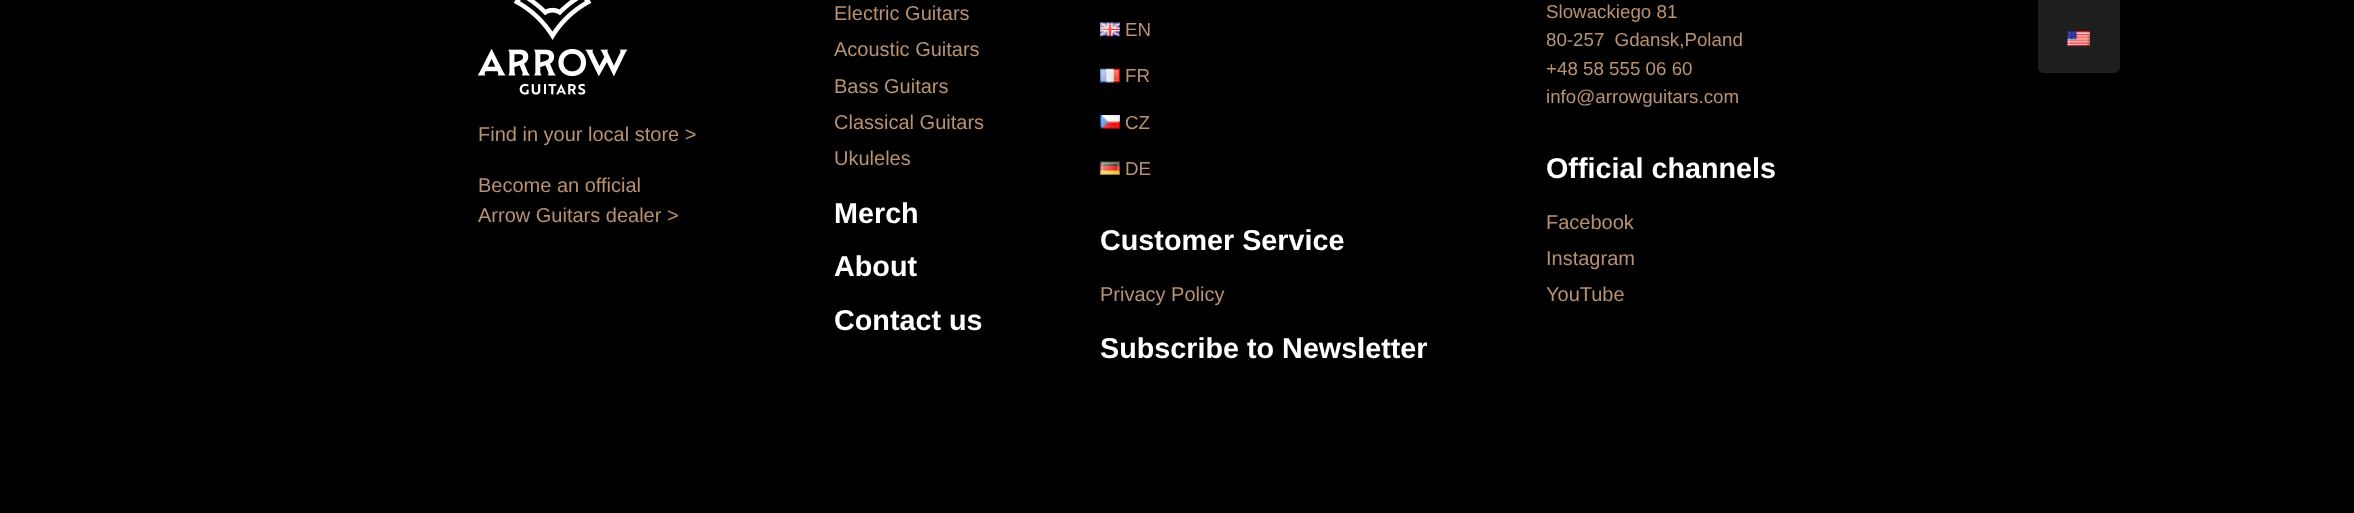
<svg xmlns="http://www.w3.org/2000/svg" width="2354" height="513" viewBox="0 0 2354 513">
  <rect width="100%" height="100%" fill="#000"/>
  <image x="478" y="0" width="150" height="95" href="img/1.png"/>
  <image x="1100" y="22" width="20" height="15" href="img/2.png"/>
  <image x="1100" y="68" width="20" height="15" href="img/3.png"/>
  <image x="1100" y="115" width="20" height="14" href="img/4.png"/>
  <image x="1100" y="161" width="20" height="14" href="img/5.png"/>
  <path d="M2038 0H2120V67C2120 70.5 2117.5 73 2114 73H2044C2040.5 73 2038 70.5 2038 67Z" fill="#1e1e1e"/>
  <image x="2067" y="31" width="23" height="16" href="img/6.png"/>
  <g font-family="Liberation Sans" font-size="20" fill="#b99271">
    <text x="478" y="141">Find in your local store &gt;</text>
    <text x="478" y="192">Become an official</text>
    <text x="478" y="222">Arrow Guitars dealer &gt;</text>
    <text x="834" y="20">Electric Guitars</text>
    <text x="834" y="56">Acoustic Guitars</text>
    <text x="834" y="93">Bass Guitars</text>
    <text x="834" y="129">Classical Guitars</text>
    <text x="834" y="165">Ukuleles</text>
  </g>
  <g font-family="Liberation Sans" font-size="28.75" font-weight="bold" fill="#fff">
    <text x="834" y="223">Merch</text>
    <text x="834" y="276">About</text>
    <text x="834" y="330">Contact us</text>
  </g>
  <g font-family="Liberation Sans" font-size="18.75" fill="#b99271">
    <text x="1125" y="36">EN</text>
    <text x="1125" y="82">FR</text>
    <text x="1125" y="129">CZ</text>
    <text x="1125" y="175">DE</text>
  </g>
  <text x="1100" y="250" font-family="Liberation Sans" font-size="28.75" font-weight="bold" fill="#fff">Customer Service</text>
  <text x="1100" y="301" font-family="Liberation Sans" font-size="20" fill="#b99271">Privacy Policy</text>
  <text x="1100" y="358" font-family="Liberation Sans" font-size="28.75" font-weight="bold" fill="#fff">Subscribe to Newsletter</text>
  <g font-family="Liberation Sans" font-size="18.75" fill="#b99271">
    <text x="1546" y="18">Slowackiego 81</text>
    <text x="1546" y="46" word-spacing="5">80-257 Gdansk,Poland</text>
    <text x="1546" y="75">+48 58 555 06 60</text>
    <text x="1546" y="103">info@arrowguitars.com</text>
  </g>
  <text x="1546" y="178" font-family="Liberation Sans" font-size="28.75" font-weight="bold" fill="#fff">Official channels</text>
  <g font-family="Liberation Sans" font-size="20" fill="#b99271">
    <text x="1546" y="229">Facebook</text>
    <text x="1546" y="265">Instagram</text>
    <text x="1546" y="301">YouTube</text>
  </g>
</svg>
